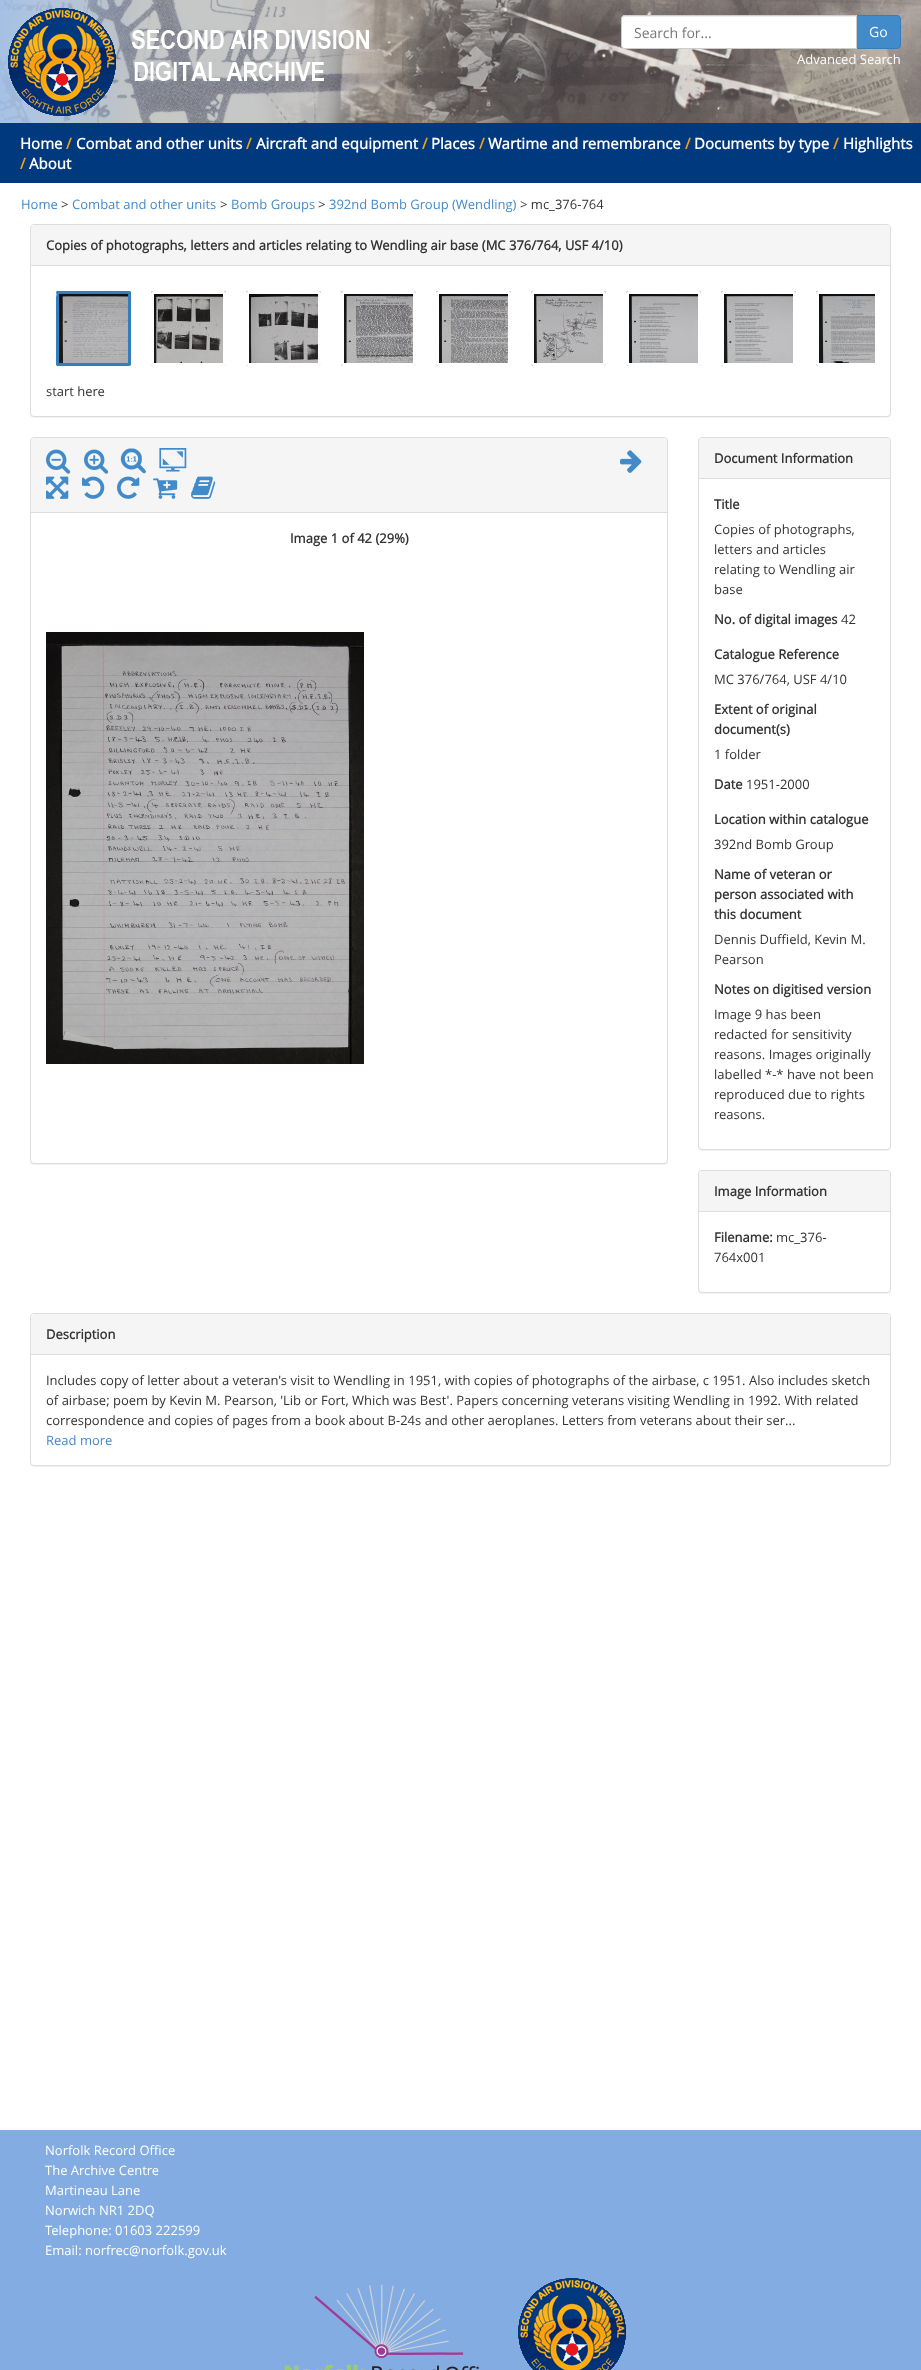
<svg xmlns="http://www.w3.org/2000/svg" width="921" height="2370" viewBox="0 0 921 2370">
  <defs>
    <clipPath id="clip1"><path d="M46 281h829v120H46z"/></clipPath>
  </defs>
  <rect width="100%" height="100%" fill="#fff"/>
  <image x="0" y="0" width="921" height="123" href="img/1.png"/>
  <image x="8" y="8" width="108" height="108" href="img/2.png"/>
  <image x="132" y="30" width="237" height="51" href="img/3.png"/>
  <path d="M856.5 15.5H897C899 15.5 900.5 17 900.5 19V45C900.5 47 899 48.5 897 48.5H856.5Z" fill="#428bca" stroke="#357ebd"/>
  <path d="M625 15H857V49H625C623 49 621 47 621 45V19C621 17 623 15 625 15Z" fill="#fff"/>
  <path d="M625 17H856V16H625C623 16 622 18 622 20C622 18 623 17 625 17Z" fill="#ececec"/>
  <path d="M625 15.5H856.5V48.5H625C623 48.5 621.5 47 621.5 45V19C621.5 17 623 15.5 625 15.5Z" fill="none" stroke="#ccc"/>
  <path d="M0 123h921v60H0z" fill="#01397f"/>
  <rect x="30" y="225" width="861" height="193" rx="4" fill="#0000000d" filter="blur(0.5px)"/>
  <rect x="30.5" y="224.5" width="860" height="192" rx="3.5" fill="#fff" stroke="#ddd"/>
  <path d="M34 225H887C888.5 225 890 226.5 890 228V266H31V228C31 226.5 32.5 225 34 225Z" fill="#f5f5f5"/>
  <path d="M31 265h859v1H31z" fill="#ddd"/>
  <image x="56" y="291" width="75" height="75" href="img/4.png"/>
  <rect x="57.5" y="292.5" width="72" height="72" rx="1" fill="none" stroke="#357ebd" stroke-width="3"/>
  <circle cx="52.5" cy="294.5" r="4" fill="#fff"/>
  <image x="151" y="291" width="75" height="75" href="img/5.png"/>
  <rect x="152.5" y="292.5" width="72" height="72" rx="1" fill="none" stroke="#fff" stroke-width="3"/>
  <image x="246" y="291" width="75" height="75" href="img/6.png"/>
  <rect x="247.5" y="292.5" width="72" height="72" rx="1" fill="none" stroke="#fff" stroke-width="3"/>
  <image x="341" y="291" width="75" height="75" href="img/7.png"/>
  <rect x="342.5" y="292.5" width="72" height="72" rx="1" fill="none" stroke="#fff" stroke-width="3"/>
  <image x="436" y="291" width="75" height="75" href="img/8.png"/>
  <rect x="437.5" y="292.5" width="72" height="72" rx="1" fill="none" stroke="#fff" stroke-width="3"/>
  <image x="531" y="291" width="75" height="75" href="img/9.png"/>
  <rect x="532.5" y="292.5" width="72" height="72" rx="1" fill="none" stroke="#fff" stroke-width="3"/>
  <image x="626" y="291" width="75" height="75" href="img/10.png"/>
  <rect x="627.5" y="292.5" width="72" height="72" rx="1" fill="none" stroke="#fff" stroke-width="3"/>
  <image x="721" y="291" width="75" height="75" href="img/11.png"/>
  <rect x="722.5" y="292.5" width="72" height="72" rx="1" fill="none" stroke="#fff" stroke-width="3"/>
  <image x="816" y="291" width="59" height="75" href="img/12.png"/>
  <g clip-path="url(#clip1)">
    <rect x="817.5" y="292.5" width="72" height="72" rx="1" fill="none" stroke="#fff" stroke-width="3"/>
  </g>
  <rect x="30" y="438" width="638" height="727" rx="4" fill="#0000000d" filter="blur(0.5px)"/>
  <rect x="30.5" y="437.5" width="637" height="726" rx="3.5" fill="#fff" stroke="#ddd"/>
  <path d="M34 438H664C665.5 438 667 439.5 667 441V513H31V441C31 439.5 32.5 438 34 438Z" fill="#f5f5f5"/>
  <path d="M31 512h636v1H31z" fill="#ddd"/>
  <image x="46" y="449" width="25" height="25" href="img/13.png"/>
  <image x="84" y="449" width="25" height="25" href="img/14.png"/>
  <image x="120" y="448" width="26" height="26" href="img/15.png"/>
  <image x="159" y="448" width="28" height="24" href="img/16.png"/>
  <image x="46" y="476" width="23" height="23" href="img/17.png"/>
  <image x="82" y="476" width="23" height="23" href="img/18.png"/>
  <image x="117" y="476" width="23" height="23" href="img/19.png"/>
  <image x="153" y="478" width="25" height="21" href="img/20.png"/>
  <image x="191" y="476" width="25" height="23" href="img/21.png"/>
  <image x="620" y="450" width="22" height="23" href="img/22.png"/>
  <image x="46" y="632" width="318" height="432" href="img/23.png"/>
  <rect x="698" y="438" width="193" height="713" rx="4" fill="#0000000d" filter="blur(0.5px)"/>
  <rect x="698.5" y="437.5" width="192" height="712" rx="3.5" fill="#fff" stroke="#ddd"/>
  <path d="M702 438H887C888.5 438 890 439.5 890 441V479H699V441C699 439.5 700.5 438 702 438Z" fill="#f5f5f5"/>
  <path d="M699 478h191v1H699z" fill="#ddd"/>
  <rect x="698" y="1171" width="193" height="123" rx="4" fill="#0000000d" filter="blur(0.5px)"/>
  <rect x="698.5" y="1170.5" width="192" height="122" rx="3.5" fill="#fff" stroke="#ddd"/>
  <path d="M702 1171H887C888.5 1171 890 1172.5 890 1174V1212H699V1174C699 1172.5 700.5 1171 702 1171Z" fill="#f5f5f5"/>
  <path d="M699 1211h191v1H699z" fill="#ddd"/>
  <rect x="30" y="1314" width="861" height="153" rx="4" fill="#0000000d" filter="blur(0.5px)"/>
  <rect x="30.5" y="1313.5" width="860" height="152" rx="3.5" fill="#fff" stroke="#ddd"/>
  <path d="M34 1314H887C888.5 1314 890 1315.5 890 1317V1355H31V1317C31 1315.5 32.5 1314 34 1314Z" fill="#f5f5f5"/>
  <path d="M31 1354h859v1H31z" fill="#ddd"/>
  <path d="M0 2130h921v240H0z" fill="#83ace2"/>
  <image x="284" y="2284" width="195" height="86" href="img/24.png"/>
  <image x="518" y="2278" width="108" height="92" href="img/25.png"/>
  <text x="634" y="38" font-family="Open Sans" font-size="14" fill="#777">Search for...</text>
  <text x="869" y="37" font-family="Open Sans" font-size="14" fill="#fff">Go</text>
  <text x="797" y="64" font-family="Open Sans" font-size="13" fill="#fff">Advanced Search</text>
  <text x="20" y="149" font-family="Open Sans" font-size="15" font-weight="bold" fill="#fff">Home</text>
  <text x="66" y="149" font-family="Open Sans" font-size="15" font-weight="bold" fill="#fc9e0e">/</text>
  <text x="76" y="149" font-family="Open Sans" font-size="15" font-weight="bold" fill="#fff">Combat and other units</text>
  <text x="246" y="149" font-family="Open Sans" font-size="15" font-weight="bold" fill="#fc9e0e">/</text>
  <text x="256" y="149" font-family="Open Sans" font-size="15" font-weight="bold" fill="#fff">Aircraft and equipment</text>
  <text x="422" y="149" font-family="Open Sans" font-size="15" font-weight="bold" fill="#fc9e0e">/</text>
  <text x="431" y="149" font-family="Open Sans" font-size="15" font-weight="bold" fill="#fff">Places</text>
  <text x="479" y="149" font-family="Open Sans" font-size="15" font-weight="bold" fill="#fc9e0e">/</text>
  <text x="488" y="149" font-family="Open Sans" font-size="15" font-weight="bold" fill="#fff">Wartime and remembrance</text>
  <text x="685" y="149" font-family="Open Sans" font-size="15" font-weight="bold" fill="#fc9e0e">/</text>
  <text x="694" y="149" font-family="Open Sans" font-size="15" font-weight="bold" fill="#fff">Documents by type</text>
  <text x="833" y="149" font-family="Open Sans" font-size="15" font-weight="bold" fill="#fc9e0e">/</text>
  <text x="843" y="149" font-family="Open Sans" font-size="15" font-weight="bold" fill="#fff">Highlights</text>
  <text x="20" y="169" font-family="Open Sans" font-size="15" font-weight="bold" fill="#fc9e0e">/</text>
  <text x="29" y="169" font-family="Open Sans" font-size="15" font-weight="bold" fill="#fff">About</text>
  <text x="21" y="209" font-family="Open Sans" font-size="13" fill="#428bca">Home</text>
  <text x="61" y="209" font-family="Open Sans" font-size="13" fill="#333">&gt;</text>
  <text x="72" y="209" font-family="Open Sans" font-size="13" fill="#428bca">Combat and other units</text>
  <text x="220" y="209" font-family="Open Sans" font-size="13" fill="#333">&gt;</text>
  <text x="231" y="209" font-family="Open Sans" font-size="13" fill="#428bca">Bomb Groups</text>
  <text x="318" y="209" font-family="Open Sans" font-size="13" fill="#333">&gt;</text>
  <text x="329" y="209" font-family="Open Sans" font-size="13" fill="#428bca">392nd Bomb Group (Wendling)</text>
  <text x="520" y="209" font-family="Open Sans" font-size="13" fill="#333">&gt; mc_376-764</text>
  <text x="46" y="250" font-family="Open Sans" font-size="13" font-weight="bold" fill="#333">Copies of photographs, letters and articles relating to Wendling air base (MC 376/764, USF 4/10)</text>
  <text x="46" y="396" font-family="Open Sans" font-size="13" fill="#333">start here</text>
  <g font-family="Open Sans" font-size="13" font-weight="bold" fill="#333">
    <text x="290" y="543">Image 1 of 42 (29%)</text>
    <text x="714" y="463">Document Information</text>
    <text x="714" y="509">Title</text>
  </g>
  <g font-family="Open Sans" font-size="13" fill="#333">
    <text x="714" y="534">Copies of photographs,</text>
    <text x="714" y="554">letters and articles</text>
    <text x="714" y="574">relating to Wendling air</text>
    <text x="714" y="594">base</text>
  </g>
  <text x="714" y="624" font-family="Open Sans" font-size="13" font-weight="bold" fill="#333">No. of digital images</text>
  <text x="841" y="624" font-family="Open Sans" font-size="13" fill="#333">42</text>
  <text x="714" y="659" font-family="Open Sans" font-size="13" font-weight="bold" fill="#333">Catalogue Reference</text>
  <text x="714" y="684" font-family="Open Sans" font-size="13" fill="#333">MC 376/764, USF 4/10</text>
  <g font-family="Open Sans" font-size="13" font-weight="bold" fill="#333">
    <text x="714" y="714">Extent of original</text>
    <text x="714" y="734">document(s)</text>
  </g>
  <text x="714" y="759" font-family="Open Sans" font-size="13" fill="#333">1 folder</text>
  <text x="714" y="789" font-family="Open Sans" font-size="13" font-weight="bold" fill="#333">Date</text>
  <text x="746" y="789" font-family="Open Sans" font-size="13" fill="#333">1951-2000</text>
  <text x="714" y="824" font-family="Open Sans" font-size="13" font-weight="bold" fill="#333">Location within catalogue</text>
  <text x="714" y="849" font-family="Open Sans" font-size="13" fill="#333">392nd Bomb Group</text>
  <g font-family="Open Sans" font-size="13" font-weight="bold" fill="#333">
    <text x="714" y="879">Name of veteran or</text>
    <text x="714" y="899">person associated with</text>
    <text x="714" y="919">this document</text>
  </g>
  <g font-family="Open Sans" font-size="13" fill="#333">
    <text x="714" y="944">Dennis Duffield, Kevin M.</text>
    <text x="714" y="964">Pearson</text>
  </g>
  <text x="714" y="994" font-family="Open Sans" font-size="13" font-weight="bold" fill="#333">Notes on digitised version</text>
  <g font-family="Open Sans" font-size="13" fill="#333">
    <text x="714" y="1019">Image 9 has been</text>
    <text x="714" y="1039">redacted for sensitivity</text>
    <text x="714" y="1059">reasons. Images originally</text>
    <text x="714" y="1079">labelled *-* have not been</text>
    <text x="714" y="1099">reproduced due to rights</text>
    <text x="714" y="1119">reasons.</text>
  </g>
  <g font-family="Open Sans" font-size="13" font-weight="bold" fill="#333">
    <text x="714" y="1196">Image Information</text>
    <text x="714" y="1242">Filename:</text>
  </g>
  <g font-family="Open Sans" font-size="13" fill="#333">
    <text x="776" y="1242">mc_376-</text>
    <text x="714" y="1262">764x001</text>
  </g>
  <text x="46" y="1339" font-family="Open Sans" font-size="13" font-weight="bold" fill="#333">Description</text>
  <g font-family="Open Sans" font-size="13" fill="#333">
    <text x="46" y="1385">Includes copy of letter about a veteran's visit to Wendling in 1951, with copies of photographs of the airbase, c 1951. Also includes sketch</text>
    <text x="46" y="1405">of airbase; poem by Kevin M. Pearson, 'Lib or Fort, Which was Best'. Papers concerning veterans visiting Wendling in 1992. With related</text>
    <text x="46" y="1425">correspondence and copies of pages from a book about B-24s and other aeroplanes. Letters from veterans about their ser...</text>
  </g>
  <text x="46" y="1445" font-family="Open Sans" font-size="13" fill="#428bca">Read more</text>
  <g font-family="Open Sans" font-size="13" fill="#fff">
    <text x="45" y="2155">Norfolk Record Office</text>
    <text x="45" y="2175">The Archive Centre</text>
    <text x="45" y="2195">Martineau Lane</text>
    <text x="45" y="2215">Norwich NR1 2DQ</text>
    <text x="45" y="2235">Telephone: 01603 222599</text>
    <text x="45" y="2255">Email: norfrec@norfolk.gov.uk</text>
  </g>
</svg>
